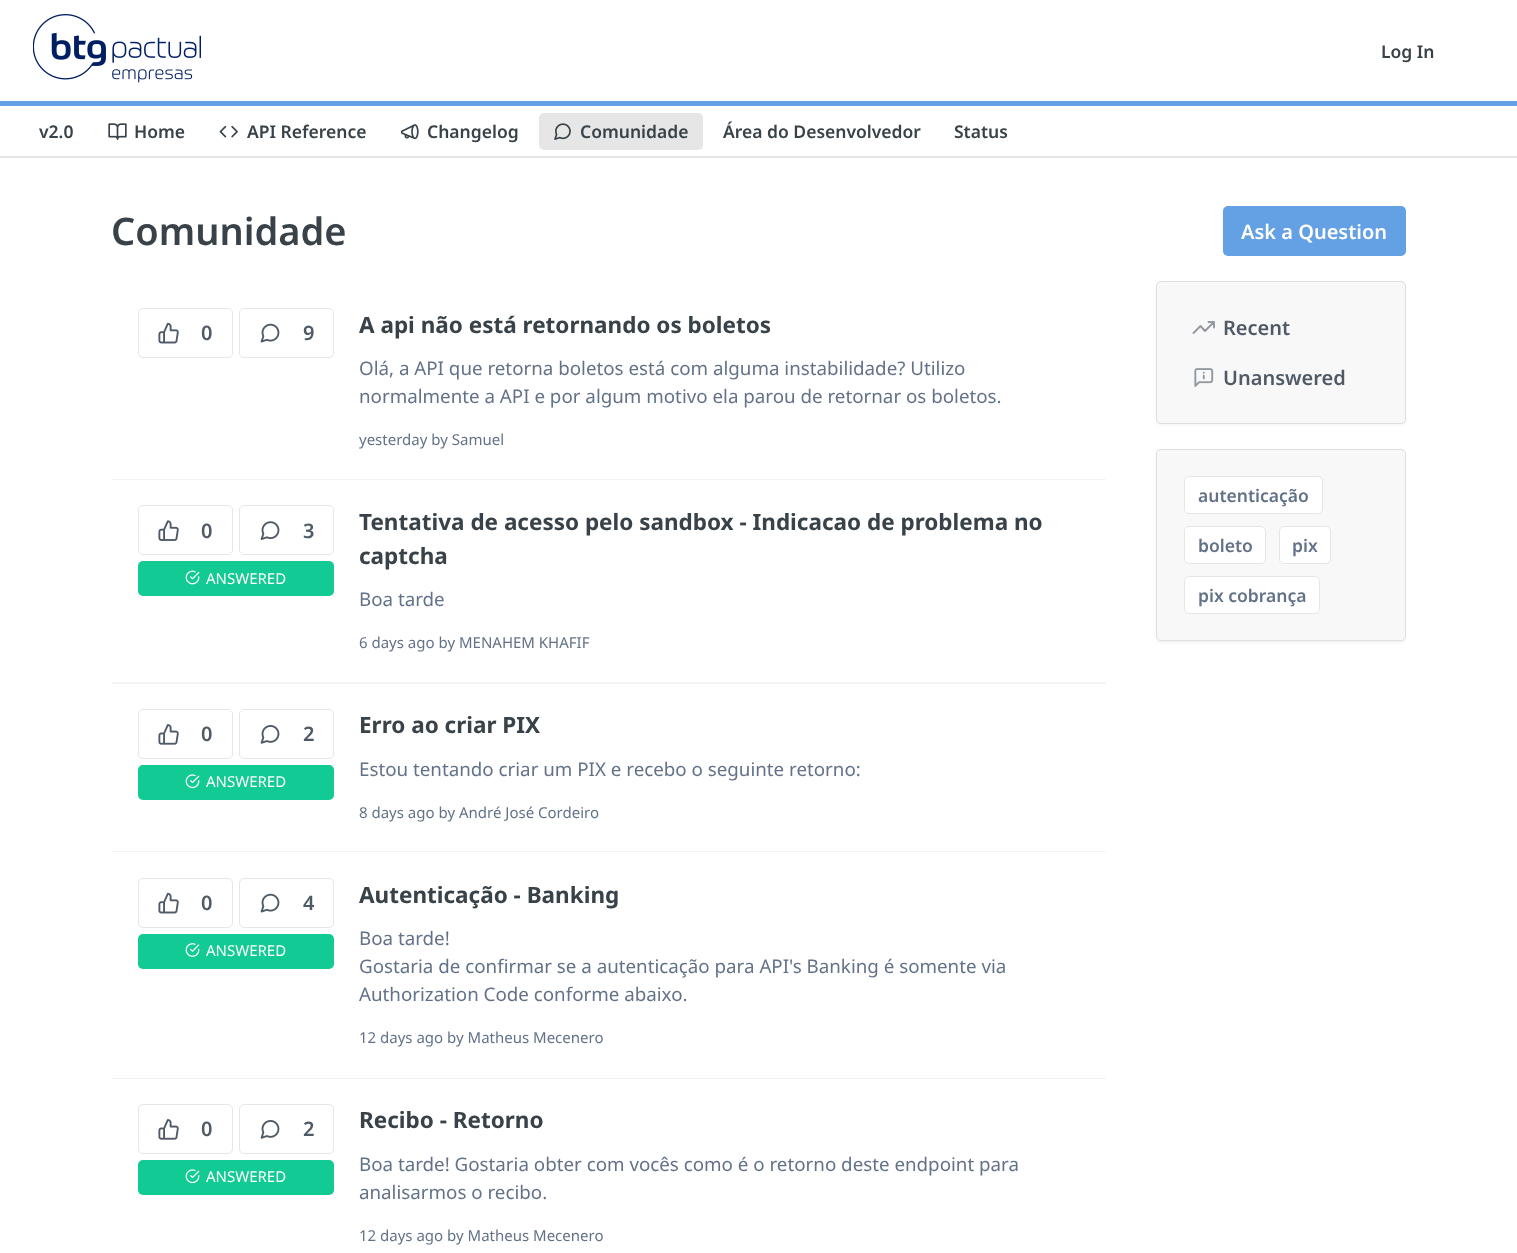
<svg xmlns="http://www.w3.org/2000/svg" width="1517" height="1253" viewBox="0 0 1517 1253">
  <rect width="100%" height="100%" fill="#fff"/>
  <path d="M0 156V158H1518V1V156Z" fill="#e6e6e6"/>
  <path d="M0 101h1517v5H0z" fill="#63a0e4"/>
  <image x="33" y="14" width="168" height="69" href="img/1.png"/>
  <image x="108" y="123" width="19" height="17" href="img/2.png"/>
  <image x="219" y="125" width="19" height="13" href="img/3.png"/>
  <image x="400" y="124" width="19" height="16" href="img/4.png"/>
  <rect x="539" y="113" width="164" height="37" rx="5" fill="#e6e6e6"/>
  <image x="554" y="123" width="17" height="17" href="img/5.png"/>
  <rect x="1223" y="206" width="183" height="50" rx="5" fill="#63a0e4"/>
  <rect x="138.5" y="308.5" width="94" height="49" rx="4.5" fill="none" stroke="#e6e6e6"/>
  <image x="158" y="322" width="21" height="22" href="img/6.png"/>
  <rect x="239.5" y="308.5" width="94" height="49" rx="4.5" fill="none" stroke="#e6e6e6"/>
  <image x="260" y="323" width="20" height="20" href="img/7.png"/>
  <path d="M111 479H1106L1105 480H112Z" fill="#f2f2f2"/>
  <rect x="138.5" y="505.5" width="94" height="49" rx="4.5" fill="none" stroke="#e6e6e6"/>
  <image x="158" y="520" width="21" height="21" href="img/8.png"/>
  <rect x="239.5" y="505.5" width="94" height="49" rx="4.5" fill="none" stroke="#e6e6e6"/>
  <image x="260" y="521" width="20" height="19" href="img/9.png"/>
  <rect x="138" y="561" width="196" height="35" rx="5" fill="#12ca93"/>
  <image x="185" y="570" width="15" height="15" href="img/10.png"/>
  <path d="M111 682H1106L1105 684H112Z" fill="#f2f2f2"/>
  <rect x="138.5" y="709.5" width="94" height="49" rx="4.5" fill="none" stroke="#e6e6e6"/>
  <image x="158" y="724" width="21" height="21" href="img/11.png"/>
  <rect x="239.5" y="709.5" width="94" height="49" rx="4.5" fill="none" stroke="#e6e6e6"/>
  <image x="260" y="725" width="20" height="19" href="img/12.png"/>
  <rect x="138" y="765" width="196" height="35" rx="5" fill="#12ca93"/>
  <image x="185" y="774" width="15" height="15" href="img/13.png"/>
  <path d="M111 851H1106L1105 852H112Z" fill="#f2f2f2"/>
  <rect x="138.5" y="878.5" width="94" height="49" rx="4.5" fill="none" stroke="#e6e6e6"/>
  <image x="158" y="892" width="21" height="22" href="img/6.png"/>
  <rect x="239.5" y="878.5" width="94" height="49" rx="4.5" fill="none" stroke="#e6e6e6"/>
  <image x="260" y="893" width="20" height="20" href="img/7.png"/>
  <rect x="138" y="934" width="196" height="35" rx="5" fill="#12ca93"/>
  <image x="185" y="943" width="15" height="14" href="img/14.png"/>
  <path d="M111 1078H1106L1105 1079H112Z" fill="#f2f2f2"/>
  <rect x="138.5" y="1104.5" width="94" height="49" rx="4.5" fill="none" stroke="#e6e6e6"/>
  <image x="158" y="1119" width="21" height="21" href="img/11.png"/>
  <rect x="239.5" y="1104.5" width="94" height="49" rx="4.5" fill="none" stroke="#e6e6e6"/>
  <image x="260" y="1120" width="20" height="19" href="img/12.png"/>
  <rect x="138" y="1160" width="196" height="35" rx="5" fill="#12ca93"/>
  <image x="185" y="1169" width="15" height="15" href="img/13.png"/>
  <rect x="1156" y="283" width="250" height="142" rx="5" fill="#0000000d" filter="blur(1px)"/>
  <rect x="1156" y="281" width="250" height="143" rx="5" fill="#f8f8f8"/>
  <rect x="1156.5" y="281.5" width="249" height="142" rx="4.5" fill="none" stroke="#0000001a"/>
  <path d="M1214 322L1205 331L1200.5 326L1193.5 333M1208.5 322H1214V327.5" fill="none" stroke="#9399a0" stroke-width="1.9" stroke-linecap="round" stroke-linejoin="round"/>
  <image x="1194" y="368" width="20" height="19" href="img/15.png"/>
  <rect x="1156" y="450" width="250" height="193" rx="5" fill="#0000000d" filter="blur(1px)"/>
  <rect x="1156" y="449" width="250" height="192" rx="5" fill="#f8f8f8"/>
  <rect x="1156.5" y="449.5" width="249" height="191" rx="4.5" fill="none" stroke="#0000001a"/>
  <rect x="1184" y="476" width="139" height="38" rx="5" fill="#fff"/>
  <rect x="1184.5" y="476.5" width="138" height="37" rx="4.5" fill="none" stroke="#0000001a"/>
  <rect x="1184" y="526" width="82" height="38" rx="5" fill="#fff"/>
  <rect x="1184.5" y="526.5" width="81" height="37" rx="4.5" fill="none" stroke="#0000001a"/>
  <rect x="1279" y="526" width="52" height="38" rx="5" fill="#fff"/>
  <rect x="1279.5" y="526.5" width="51" height="37" rx="4.5" fill="none" stroke="#0000001a"/>
  <rect x="1184" y="576" width="136" height="38" rx="5" fill="#fff"/>
  <rect x="1184.5" y="576.5" width="135" height="37" rx="4.5" fill="none" stroke="#0000001a"/>
  <g font-family="Noto Sans" font-size="17.5" font-weight="600" fill="#384248">
    <text x="1381" y="58">Log In</text>
    <text x="39" y="138">v2.0</text>
    <text x="134" y="138">Home</text>
    <text x="247" y="138">API Reference</text>
    <text x="427" y="138">Changelog</text>
    <text x="580" y="138">Comunidade</text>
    <text x="723" y="138">Área do Desenvolvedor</text>
    <text x="954" y="138">Status</text>
  </g>
  <text x="111" y="245" font-family="Noto Sans" font-size="38" font-weight="600" fill="#384248">Comunidade</text>
  <text x="1241" y="239" font-family="Noto Sans" font-size="20" font-weight="600" fill="#fff">Ask a Question</text>
  <g font-family="Noto Sans" font-size="20" font-weight="600" fill="#4f5a66">
    <text x="201" y="340">0</text>
    <text x="303" y="340">9</text>
  </g>
  <text x="359" y="333" font-family="Noto Sans" font-size="22.5" font-weight="bold" fill="#384248">A api não está retornando os boletos</text>
  <g font-family="Noto Sans" font-size="18.75" fill="#637288">
    <text x="359" y="375">Olá, a API que retorna boletos está com alguma instabilidade? Utilizo</text>
    <text x="359" y="403">normalmente a API e por algum motivo ela parou de retornar os boletos.</text>
  </g>
  <text x="359" y="445" font-family="Noto Sans" font-size="15" fill="#637288">yesterday by Samuel</text>
  <g font-family="Noto Sans" font-size="20" font-weight="600" fill="#4f5a66">
    <text x="201" y="538">0</text>
    <text x="303" y="538">3</text>
  </g>
  <text x="206" y="584" font-family="Noto Sans" font-size="15" fill="#fff">ANSWERED</text>
  <g font-family="Noto Sans" font-size="22.5" font-weight="bold" fill="#384248">
    <text x="359" y="530">Tentativa de acesso pelo sandbox - Indicacao de problema no</text>
    <text x="359" y="564">captcha</text>
  </g>
  <text x="359" y="606" font-family="Noto Sans" font-size="18.75" fill="#637288">Boa tarde</text>
  <text x="359" y="648" font-family="Noto Sans" font-size="15" fill="#637288">6 days ago by MENAHEM KHAFIF</text>
  <g font-family="Noto Sans" font-size="20" font-weight="600" fill="#4f5a66">
    <text x="201" y="741">0</text>
    <text x="303" y="741">2</text>
  </g>
  <text x="206" y="787" font-family="Noto Sans" font-size="15" fill="#fff">ANSWERED</text>
  <text x="359" y="733" font-family="Noto Sans" font-size="22.5" font-weight="bold" fill="#384248">Erro ao criar PIX</text>
  <text x="359" y="776" font-family="Noto Sans" font-size="18.75" fill="#637288">Estou tentando criar um PIX e recebo o seguinte retorno:</text>
  <text x="359" y="818" font-family="Noto Sans" font-size="15" fill="#637288">8 days ago by André José Cordeiro</text>
  <g font-family="Noto Sans" font-size="20" font-weight="600" fill="#4f5a66">
    <text x="201" y="910">0</text>
    <text x="303" y="910">4</text>
  </g>
  <text x="206" y="956" font-family="Noto Sans" font-size="15" fill="#fff">ANSWERED</text>
  <text x="359" y="903" font-family="Noto Sans" font-size="22.5" font-weight="bold" fill="#384248">Autenticação - Banking</text>
  <g font-family="Noto Sans" font-size="18.75" fill="#637288">
    <text x="359" y="945">Boa tarde!</text>
    <text x="359" y="973">Gostaria de confirmar se a autenticação para API's Banking é somente via</text>
    <text x="359" y="1001">Authorization Code conforme abaixo.</text>
  </g>
  <text x="359" y="1043" font-family="Noto Sans" font-size="15" fill="#637288">12 days ago by Matheus Mecenero</text>
  <g font-family="Noto Sans" font-size="20" font-weight="600" fill="#4f5a66">
    <text x="201" y="1136">0</text>
    <text x="303" y="1136">2</text>
  </g>
  <text x="206" y="1182" font-family="Noto Sans" font-size="15" fill="#fff">ANSWERED</text>
  <text x="359" y="1128" font-family="Noto Sans" font-size="22.5" font-weight="bold" fill="#384248">Recibo - Retorno</text>
  <g font-family="Noto Sans" font-size="18.75" fill="#637288">
    <text x="359" y="1171">Boa tarde! Gostaria obter com vocês como é o retorno deste endpoint para</text>
    <text x="359" y="1199">analisarmos o recibo.</text>
  </g>
  <text x="359" y="1241" font-family="Noto Sans" font-size="15" fill="#637288">12 days ago by Matheus Mecenero</text>
  <g font-family="Noto Sans" font-size="20" font-weight="600" fill="#4f5a66">
    <text x="1223" y="335">Recent</text>
    <text x="1223" y="385">Unanswered</text>
  </g>
  <g font-family="Noto Sans" font-size="17.5" font-weight="600" fill="#637288">
    <text x="1198" y="502">autenticação</text>
    <text x="1198" y="552">boleto</text>
    <text x="1292" y="552">pix</text>
    <text x="1198" y="602">pix cobrança</text>
  </g>
</svg>
